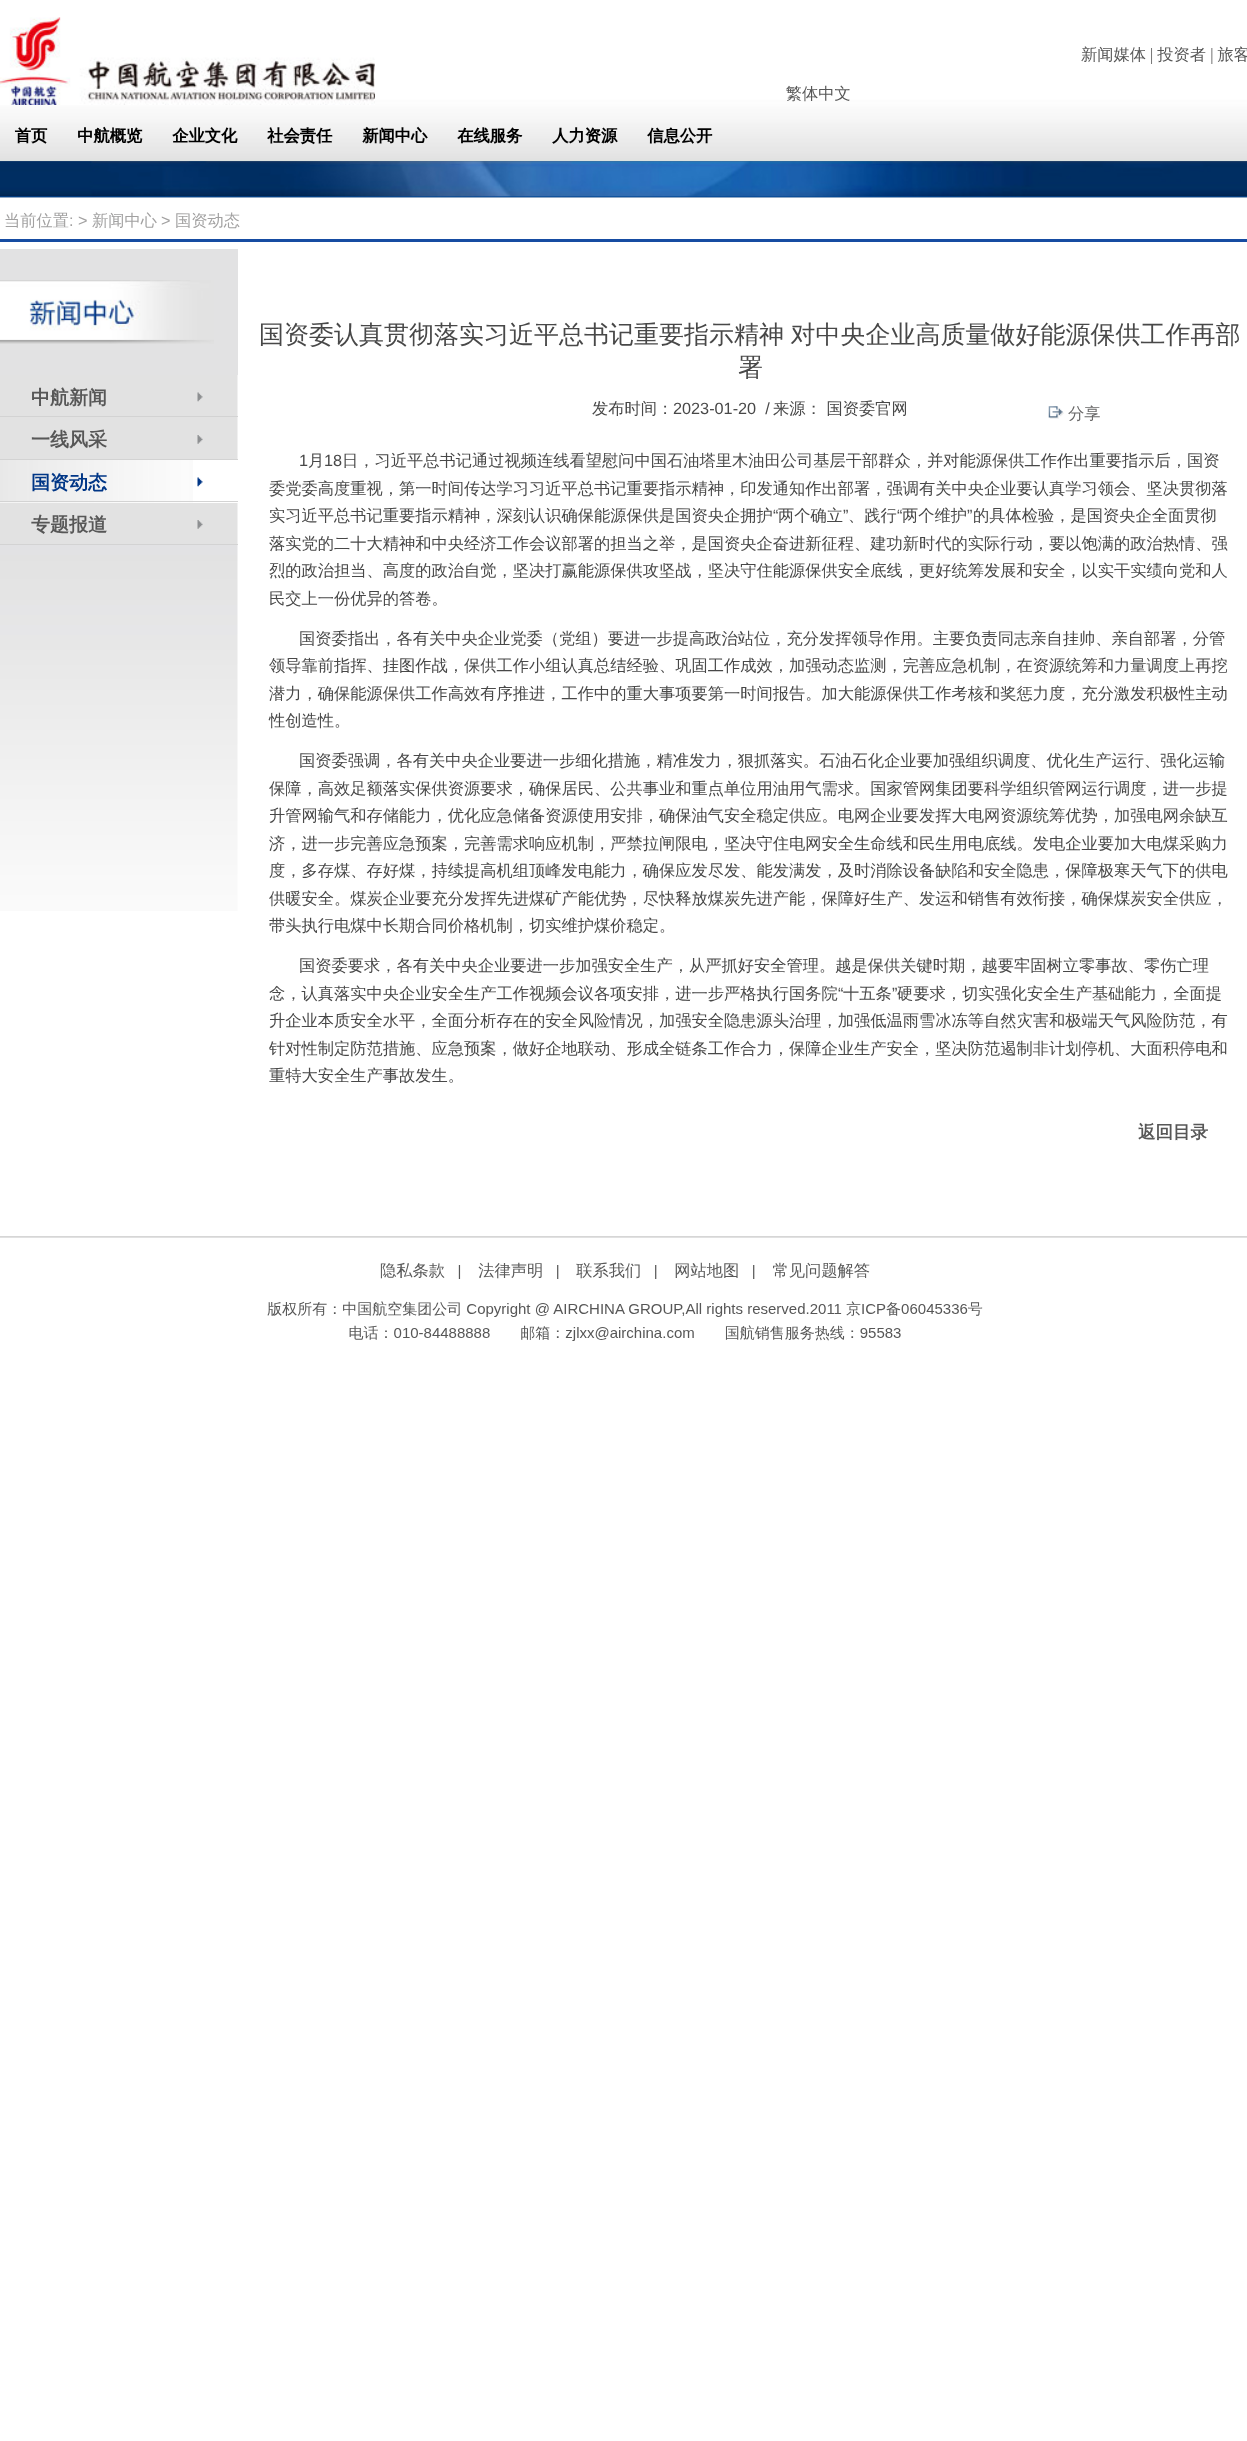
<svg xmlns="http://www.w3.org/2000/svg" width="1247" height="2441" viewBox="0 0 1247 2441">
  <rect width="100%" height="100%" fill="#fff"/>
  <image x="0" y="17" width="1247" height="181" href="img/1.png"/>
  <path d="M0 239h1247v3H0z" fill="#164ca2"/>
  <path d="M0 249h238v126H0z" fill="#e2e2e3"/>
  <image x="0" y="280" width="214" height="64" href="img/2.png"/>
  <image x="0" y="375" width="238" height="536" href="img/3.png"/>
  <image x="197" y="392" width="6" height="10" href="img/4.png"/>
  <path d="M0 416h238v1H0z" fill="#d3d3d3"/>
  <image x="197" y="435" width="6" height="9" href="img/5.png"/>
  <path d="M0 459h238v1H0z" fill="#d3d3d3"/>
  <path d="M0 460h238v43H0z" fill="#fff"/>
  <image x="0" y="460" width="193" height="43" href="img/6.png"/>
  <path d="M0 501h238v1H0z" fill="#d3d3d3"/>
  <image x="197" y="477" width="6" height="10" href="img/7.png"/>
  <image x="197" y="520" width="6" height="9" href="img/5.png"/>
  <path d="M0 544h238v1H0z" fill="#d3d3d3"/>
  <image x="1048" y="406" width="16" height="13" href="img/8.png"/>
  <image x="0" y="1236" width="1247" height="2" href="img/9.png"/>
  <image x="267" y="1262" width="716" height="79" href="img/10.png"/>
  <text x="4" y="226" font-family="WenQuanYi Zen Hei" font-size="16.25" font-weight="500" fill="#a2a1a1">当前位置</text>
  <text x="69" y="226" font-family="Liberation Sans" font-size="16.25" fill="#a2a1a1">: &gt;</text>
  <text x="92" y="226" font-family="WenQuanYi Zen Hei" font-size="16.25" font-weight="500" fill="#a2a1a1">新闻中心</text>
  <text x="161" y="226" font-family="Liberation Sans" font-size="16.25" fill="#a2a1a1">&gt;</text>
  <text x="175" y="226" font-family="WenQuanYi Zen Hei" font-size="16.25" font-weight="500" fill="#a2a1a1">国资动态</text>
  <g font-family="WenQuanYi Zen Hei" font-size="19" font-weight="bold" fill="#575757">
    <text x="31" y="404">中航新闻</text>
    <text x="31" y="446">一线风采</text>
  </g>
  <text x="31" y="489" font-family="WenQuanYi Zen Hei" font-size="19" font-weight="bold" fill="#003686">国资动态</text>
  <text x="31" y="531" font-family="WenQuanYi Zen Hei" font-size="19" font-weight="bold" fill="#575757">专题报道</text>
  <g font-family="WenQuanYi Zen Hei" font-size="25" font-weight="500" fill="#484848">
    <text x="259" y="343" word-spacing="-1">国资委认真贯彻落实习近平总书记重要指示精神 对中央企业高质量做好能源保供工作再部</text>
    <text x="738" y="376">署</text>
  </g>
  <text x="592" y="414" font-family="WenQuanYi Zen Hei" font-size="16.25" font-weight="500" fill="#484848">发布时间：</text>
  <text x="673" y="414" font-family="Liberation Sans" font-size="16.25" fill="#484848" xml:space="preserve">2023-01-20  /</text>
  <text x="773" y="414" font-family="WenQuanYi Zen Hei" font-size="16.25" font-weight="500" fill="#484848">来源： 国资委官网</text>
  <text x="1068" y="419" font-family="WenQuanYi Zen Hei" font-size="16.25" font-weight="500" fill="#696868">分享</text>
  <text x="299" y="466" font-family="Liberation Sans" font-size="16.25" fill="#484848">1</text>
  <text x="308" y="466" font-family="WenQuanYi Zen Hei" font-size="16.25" font-weight="500" fill="#484848">月</text>
  <text x="324" y="466" font-family="Liberation Sans" font-size="16.25" fill="#484848">18</text>
  <g font-family="WenQuanYi Zen Hei" font-size="16.25" font-weight="500" fill="#484848">
    <text x="342" y="466">日，习近平总书记通过视频连线看望慰问中国石油塔里木油田公司基层干部群众，并对能源保供工作作出重要指示后，国资</text>
    <text x="269" y="494">委党委高度重视，第一时间传达学习习近平总书记重要指示精神，印发通知作出部署，强调有关中央企业要认真学习领会、坚决贯彻落</text>
    <text x="269" y="521">实习近平总书记重要指示精神，深刻认识确保能源保供是国资央企拥护</text>
  </g>
  <text x="773" y="521" font-family="Liberation Sans" font-size="16.25" fill="#484848">“</text>
  <text x="778" y="521" font-family="WenQuanYi Zen Hei" font-size="16.25" font-weight="500" fill="#484848">两个确立</text>
  <text x="843" y="521" font-family="Liberation Sans" font-size="16.25" fill="#484848">”</text>
  <text x="848" y="521" font-family="WenQuanYi Zen Hei" font-size="16.25" font-weight="500" fill="#484848">、践行</text>
  <text x="897" y="521" font-family="Liberation Sans" font-size="16.25" fill="#484848">“</text>
  <text x="902" y="521" font-family="WenQuanYi Zen Hei" font-size="16.25" font-weight="500" fill="#484848">两个维护</text>
  <text x="967" y="521" font-family="Liberation Sans" font-size="16.25" fill="#484848">”</text>
  <g font-family="WenQuanYi Zen Hei" font-size="16.25" font-weight="500" fill="#484848">
    <text x="973" y="521">的具体检验，是国资央企全面贯彻</text>
    <text x="269" y="549">落实党的二十大精神和中央经济工作会议部署的担当之举，是国资央企奋进新征程、建功新时代的实际行动，要以饱满的政治热情、强</text>
    <text x="269" y="576">烈的政治担当、高度的政治自觉，坚决打赢能源保供攻坚战，坚决守住能源保供安全底线，更好统筹发展和安全，以实干实绩向党和人</text>
    <text x="269" y="604">民交上一份优异的答卷。</text>
    <text x="299" y="644">国资委指出，各有关中央企业党委（党组）要进一步提高政治站位，充分发挥领导作用。主要负责同志亲自挂帅、亲自部署，分管</text>
    <text x="269" y="671">领导靠前指挥、挂图作战，保供工作小组认真总结经验、巩固工作成效，加强动态监测，完善应急机制，在资源统筹和力量调度上再挖</text>
    <text x="269" y="699">潜力，确保能源保供工作高效有序推进，工作中的重大事项要第一时间报告。加大能源保供工作考核和奖惩力度，充分激发积极性主动</text>
    <text x="269" y="726">性创造性。</text>
    <text x="299" y="766">国资委强调，各有关中央企业要进一步细化措施，精准发力，狠抓落实。石油石化企业要加强组织调度、优化生产运行、强化运输</text>
    <text x="269" y="794">保障，高效足额落实保供资源要求，确保居民、公共事业和重点单位用油用气需求。国家管网集团要科学组织管网运行调度，进一步提</text>
    <text x="269" y="821">升管网输气和存储能力，优化应急储备资源使用安排，确保油气安全稳定供应。电网企业要发挥大电网资源统筹优势，加强电网余缺互</text>
    <text x="269" y="849">济，进一步完善应急预案，完善需求响应机制，严禁拉闸限电，坚决守住电网安全生命线和民生用电底线。发电企业要加大电煤采购力</text>
    <text x="269" y="876">度，多存煤、存好煤，持续提高机组顶峰发电能力，确保应发尽发、能发满发，及时消除设备缺陷和安全隐患，保障极寒天气下的供电</text>
    <text x="269" y="904">供暖安全。煤炭企业要充分发挥先进煤矿产能优势，尽快释放煤炭先进产能，保障好生产、发运和销售有效衔接，确保煤炭安全供应，</text>
    <text x="269" y="931">带头执行电煤中长期合同价格机制，切实维护煤价稳定。</text>
    <text x="299" y="971">国资委要求，各有关中央企业要进一步加强安全生产，从严抓好安全管理。越是保供关键时期，越要牢固树立零事故、零伤亡理</text>
    <text x="269" y="999">念，认真落实中央企业安全生产工作视频会议各项安排，进一步严格执行国务院</text>
  </g>
  <text x="838" y="999" font-family="Liberation Sans" font-size="16.25" fill="#484848">“</text>
  <text x="843" y="999" font-family="WenQuanYi Zen Hei" font-size="16.25" font-weight="500" fill="#484848">十五条</text>
  <text x="892" y="999" font-family="Liberation Sans" font-size="16.25" fill="#484848">”</text>
  <g font-family="WenQuanYi Zen Hei" font-size="16.25" font-weight="500" fill="#484848">
    <text x="897" y="999">硬要求，切实强化安全生产基础能力，全面提</text>
    <text x="269" y="1026">升企业本质安全水平，全面分析存在的安全风险情况，加强安全隐患源头治理，加强低温雨雪冰冻等自然灾害和极端天气风险防范，有</text>
    <text x="269" y="1054">针对性制定防范措施、应急预案，做好企地联动、形成全链条工作合力，保障企业生产安全，坚决防范遏制非计划停机、大面积停电和</text>
    <text x="269" y="1081">重特大安全生产事故发生。</text>
  </g>
  <text x="1138" y="1138" font-family="WenQuanYi Zen Hei" font-size="17.5" font-weight="bold" fill="#575757">返回目录</text>
</svg>
